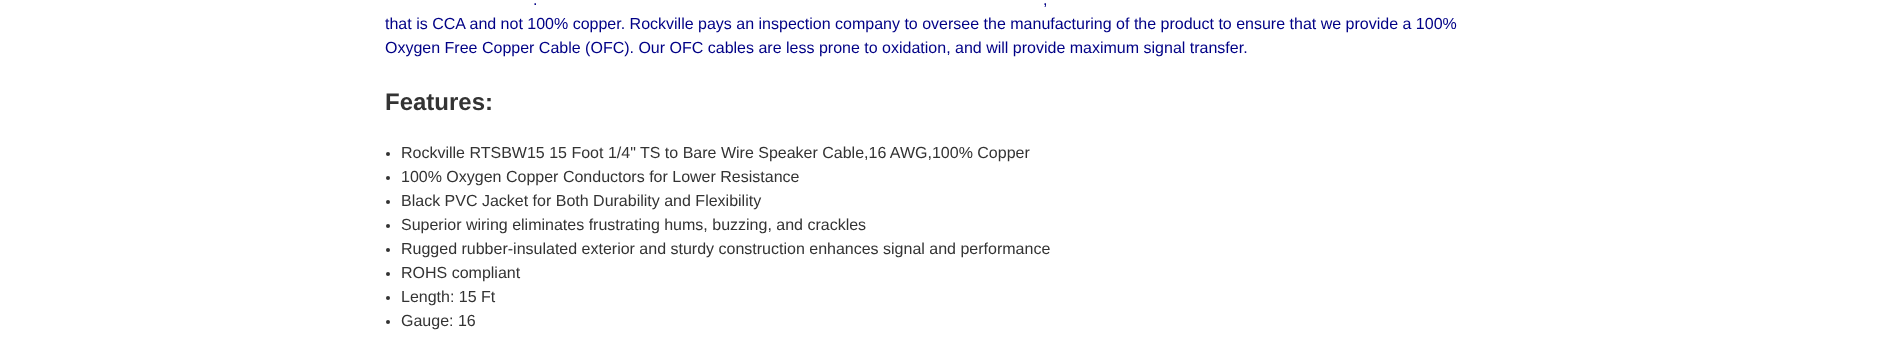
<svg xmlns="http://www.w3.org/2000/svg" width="1891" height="361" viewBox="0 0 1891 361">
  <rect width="100%" height="100%" fill="#fff"/>
  <circle cx="388" cy="154" r="2" fill="#333"/>
  <circle cx="388" cy="178" r="2" fill="#333"/>
  <circle cx="388" cy="202" r="2" fill="#333"/>
  <circle cx="388" cy="226" r="2" fill="#333"/>
  <circle cx="388" cy="250" r="2" fill="#333"/>
  <circle cx="388" cy="274" r="2" fill="#333"/>
  <circle cx="388" cy="298" r="2" fill="#333"/>
  <circle cx="388" cy="322" r="2" fill="#333"/>
  <g font-family="Liberation Sans" font-size="16" fill="#000086">
    <text x="533" y="5">.</text>
    <text x="1043" y="5">,</text>
    <text x="385" y="29">that is CCA and not 100% copper. Rockville pays an inspection company to oversee the manufacturing of the product to ensure that we provide a 100%</text>
    <text x="385" y="53">Oxygen Free Copper Cable (OFC). Our OFC cables are less prone to oxidation, and will provide maximum signal transfer.</text>
  </g>
  <text x="385" y="110" font-family="Liberation Sans" font-size="24" font-weight="bold" fill="#333">Features:</text>
  <g font-family="Liberation Sans" font-size="16" fill="#333">
    <text x="401" y="158">Rockville RTSBW15 15 Foot 1/4" TS to Bare Wire Speaker Cable,16 AWG,100% Copper</text>
    <text x="401" y="182">100% Oxygen Copper Conductors for Lower Resistance</text>
    <text x="401" y="206">Black PVC Jacket for Both Durability and Flexibility</text>
    <text x="401" y="230">Superior wiring eliminates frustrating hums, buzzing, and crackles</text>
    <text x="401" y="254">Rugged rubber-insulated exterior and sturdy construction enhances signal and performance</text>
    <text x="401" y="278">ROHS compliant</text>
    <text x="401" y="302">Length: 15 Ft</text>
    <text x="401" y="326">Gauge: 16</text>
  </g>
</svg>
